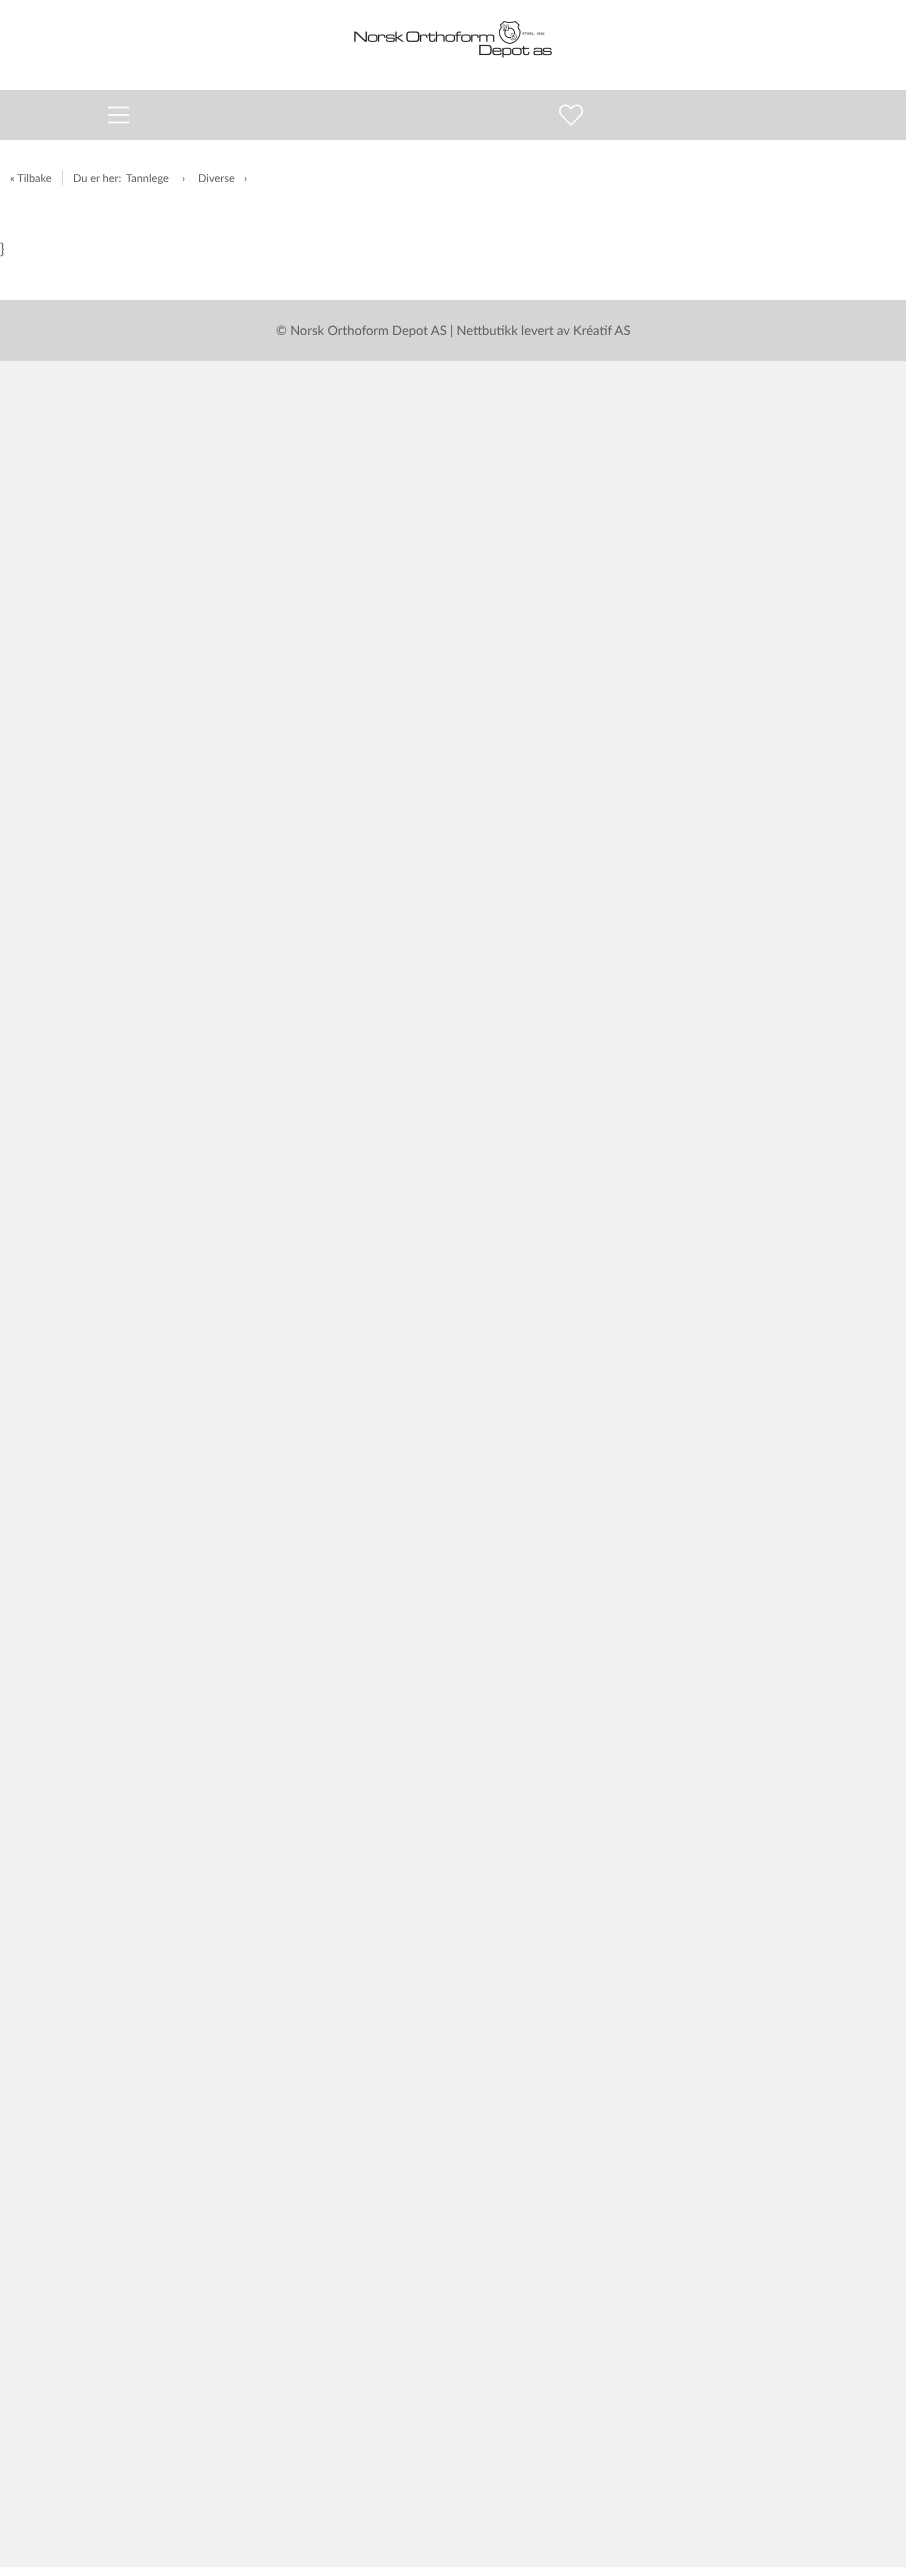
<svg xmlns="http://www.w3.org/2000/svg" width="906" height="2567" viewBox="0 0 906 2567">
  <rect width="100%" height="100%" fill="#f1f1f1"/>
  <path d="M0 0h906v300H0z" fill="#fff"/>
  <image x="354" y="21" width="198" height="37" href="img/1.png"/>
  <path d="M0 90h906v50H0z" fill="#d5d5d5"/>
  <image x="108" y="106" width="21" height="18" href="img/2.png"/>
  <image x="559" y="104" width="24" height="22" href="img/3.png"/>
  <path d="M62 170h1v15H62z" fill="#d3d3d3"/>
  <path d="M0 300h906v61H0z" fill="#d5d5d5"/>
  <g font-family="Lato" font-size="11" fill="#606060">
    <text x="10" y="182">« Tilbake</text>
    <text x="73" y="182">Du er her:</text>
    <text x="126" y="182">Tannlege</text>
    <text x="182" y="182">›</text>
    <text x="198" y="182">Diverse</text>
    <text x="244" y="182">›</text>
  </g>
  <text x="0" y="254" font-family="Lato" font-size="15" fill="#606060">}</text>
  <text x="276" y="335" font-family="Lato" font-size="13" fill="#606060">© Norsk Orthoform Depot AS | Nettbutikk levert av Kréatif AS</text>
</svg>
